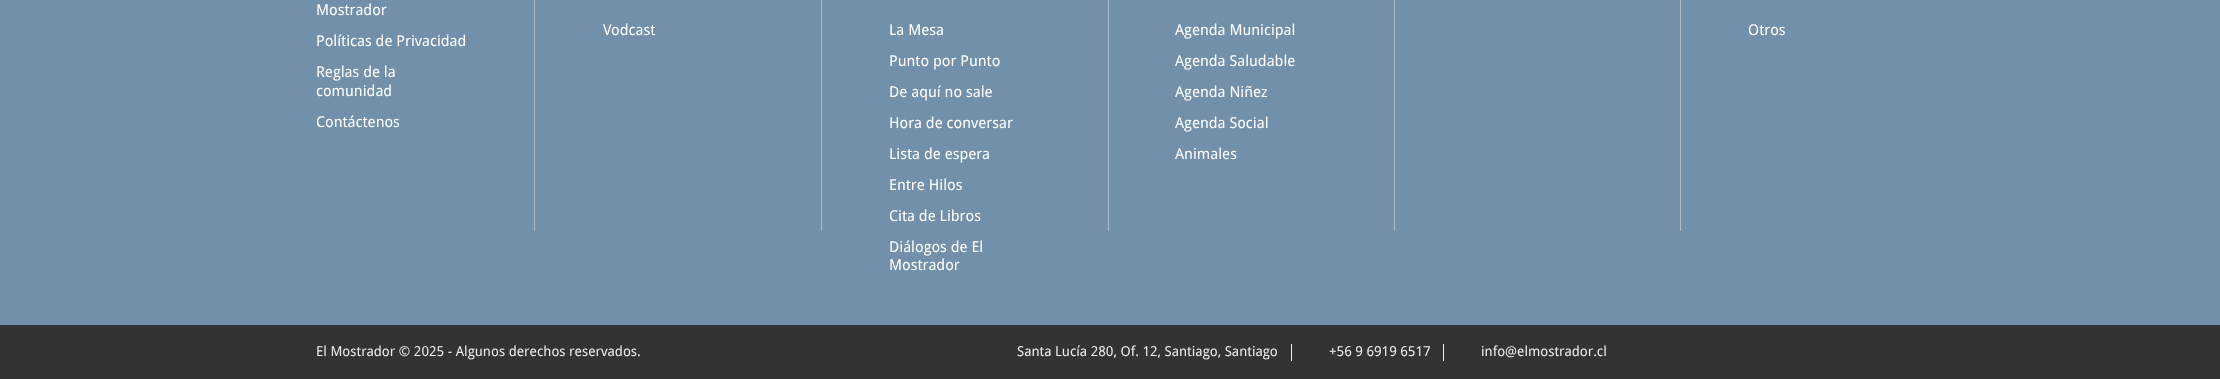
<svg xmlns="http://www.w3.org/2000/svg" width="2220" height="379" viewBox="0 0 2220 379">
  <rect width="100%" height="100%" fill="#7290aa"/>
  <path d="M534 0h1v231H534z" fill="#acb9ca"/>
  <path d="M821 0h1v231H821z" fill="#acb9ca"/>
  <path d="M1108 0h1v231H1108z" fill="#acb9ca"/>
  <path d="M1394 0h1v231H1394z" fill="#acb9ca"/>
  <path d="M1680 0h1v231H1680z" fill="#acb9ca"/>
  <path d="M0 325h2220v54H0z" fill="#333"/>
  <path d="M1291 344h1v17H1291z" fill="#ededed"/>
  <path d="M1443 344h1v17H1443z" fill="#ededed"/>
  <g font-family="Droid Sans" font-size="15" fill="#fff">
    <text x="316" y="15">Mostrador</text>
    <text x="316" y="46">Políticas de Privacidad</text>
    <text x="316" y="77">Reglas de la</text>
    <text x="316" y="96">comunidad</text>
    <text x="316" y="127">Contáctenos</text>
    <text x="603" y="35">Vodcast</text>
    <text x="889" y="35">La Mesa</text>
    <text x="889" y="66">Punto por Punto</text>
    <text x="889" y="97">De aquí no sale</text>
    <text x="889" y="128">Hora de conversar</text>
    <text x="889" y="159">Lista de espera</text>
    <text x="889" y="190">Entre Hilos</text>
    <text x="889" y="221">Cita de Libros</text>
    <text x="889" y="252">Diálogos de El</text>
    <text x="889" y="270">Mostrador</text>
    <text x="1175" y="35">Agenda Municipal</text>
    <text x="1175" y="66">Agenda Saludable</text>
    <text x="1175" y="97">Agenda Niñez</text>
    <text x="1175" y="128">Agenda Social</text>
    <text x="1175" y="159">Animales</text>
    <text x="1748" y="35">Otros</text>
  </g>
  <g font-family="Droid Sans" font-size="13.75" fill="#ededed">
    <text x="316" y="356">El Mostrador © 2025 - Algunos derechos reservados.</text>
    <text x="1017" y="356">Santa Lucía 280, Of. 12, Santiago, Santiago</text>
    <text x="1329" y="356">+56 9 6919 6517</text>
    <text x="1481" y="356">info@elmostrador.cl</text>
  </g>
</svg>
